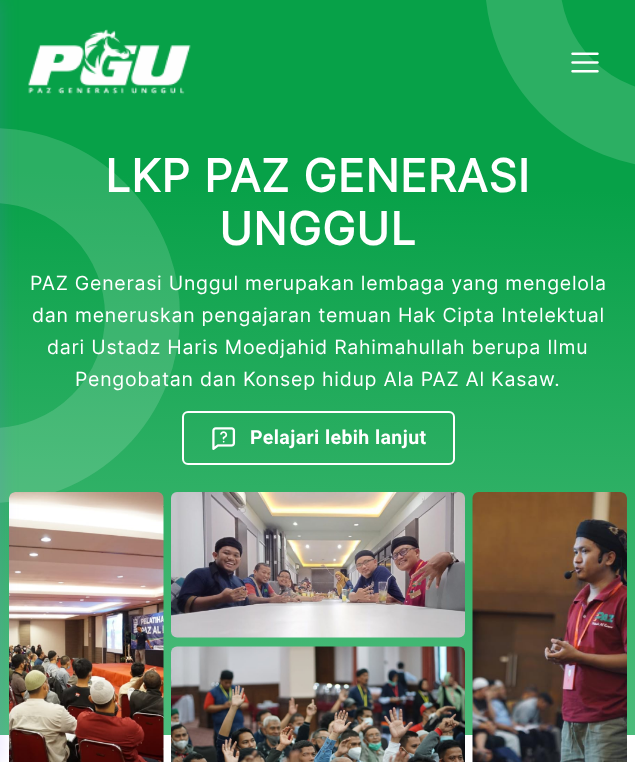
<svg xmlns="http://www.w3.org/2000/svg" width="635" height="762" viewBox="0 0 635 762">
  <defs>
    <linearGradient id="g1" gradientUnits="userSpaceOnUse" x1="331" y1="-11" x2="257" y2="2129"><stop offset="0.09" stop-color="#07a148"/><stop offset="1" stop-color="#fff"/></linearGradient>
  </defs>
  <rect width="100%" height="100%" fill="#fff"/>
  <path d="M0 0h635v735H0z" fill="url(#g1)"/>
  <circle cx="-7.5" cy="315.5" r="150" fill="none" stroke="#ffffff26" stroke-width="75"/>
  <image x="9" y="492" width="155" height="270" href="img/4.png"/>
  <path d="M-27 0h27v762H-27z" fill="#816bff33" filter="blur(9px)"/>
  <image x="28" y="29" width="163" height="66" href="img/1.png"/>
  <circle cx="672.5" cy="-19.5" r="150" fill="none" stroke="#2caf63" stroke-width="75"/>
  <image x="571" y="52" width="28" height="21" href="img/2.png"/>
  <rect x="183" y="412" width="271" height="52" rx="5" fill="none" stroke="#fff" stroke-width="2"/>
  <image x="212" y="427" width="24" height="23" href="img/3.png"/>
  <image x="171" y="492" width="294" height="146" href="img/5.png"/>
  <image x="170" y="646" width="295" height="116" href="img/6.png"/>
  <image x="472" y="492" width="155" height="270" href="img/7.png"/>
  <g font-family="Inter" font-size="45" font-weight="bold" letter-spacing="0.75" fill="#fff">
    <text x="105" y="192">LKP PAZ GENERASI</text>
    <text x="219" y="245">UNGGUL</text>
  </g>
  <g font-family="Inter" font-size="19.5" letter-spacing="0.75" fill="#fff">
    <text x="30" y="290">PAZ Generasi Unggul merupakan lembaga yang mengelola</text>
    <text x="32" y="322">dan meneruskan pengajaran temuan Hak Cipta Intelektual</text>
    <text x="47" y="354">dari Ustadz Haris Moedjahid Rahimahullah berupa Ilmu</text>
    <text x="75" y="386">Pengobatan dan Konsep hidup Ala PAZ Al Kasaw.</text>
  </g>
  <text x="250" y="444" font-family="Roboto" font-size="19.5" font-weight="bold" letter-spacing="0.4" fill="#fff">Pelajari lebih lanjut</text>
</svg>
